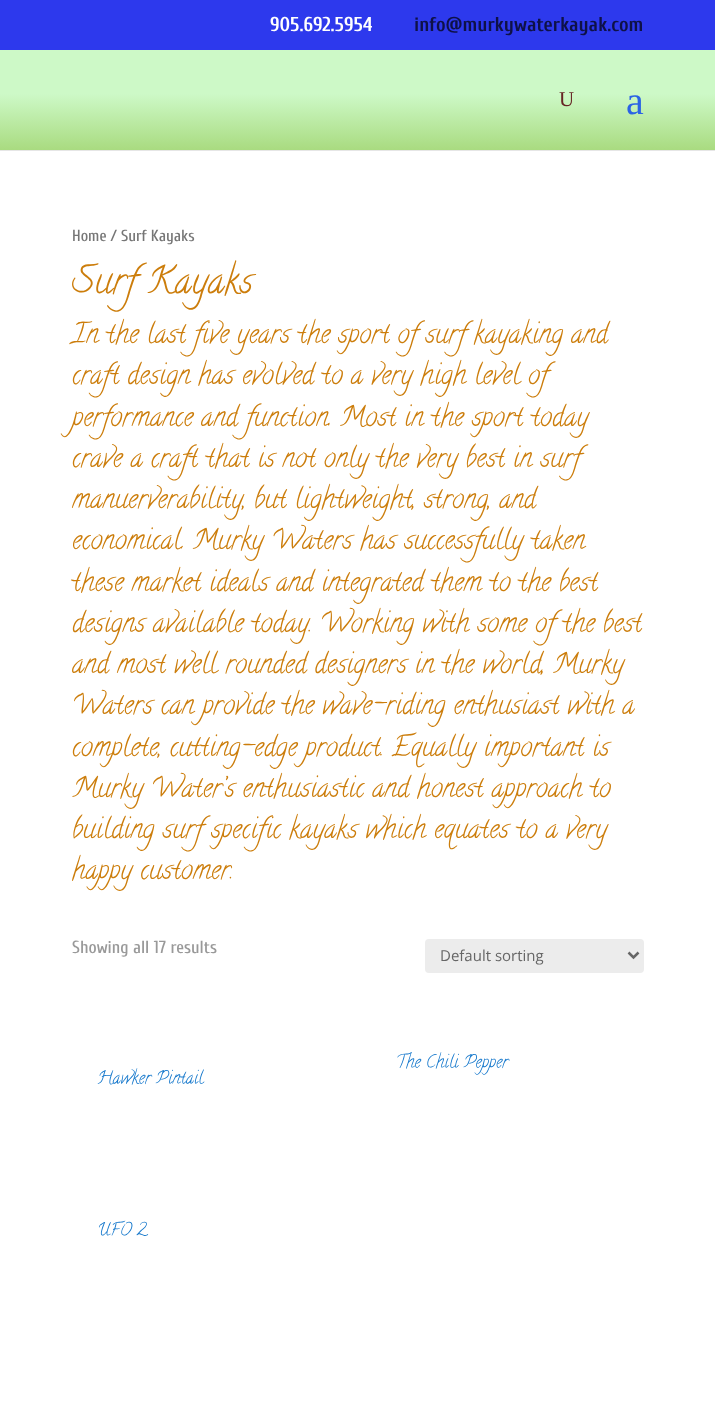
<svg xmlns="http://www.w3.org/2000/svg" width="715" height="1412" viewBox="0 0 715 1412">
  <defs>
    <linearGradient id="g1" gradientUnits="userSpaceOnUse" x1="358" y1="50" x2="358" y2="150"><stop offset="0.44" stop-color="#cdf9c7"/><stop offset="1" stop-color="#a9db80"/></linearGradient>
  </defs>
  <rect width="100%" height="100%" fill="#fff"/>
  <path d="M0 0h715v50H0z" fill="#2d39ed"/>
  <path d="M0 150h715v1H0z" fill="#e6e6e6"/>
  <path d="M0 50h715v100H0z" fill="url(#g1)"/>
  <rect x="425" y="939" width="219" height="34" rx="4" fill="#ececec"/>
  <path d="M628.5 952.5L633.5 957.5L638.5 952.5" fill="none" stroke="#666" stroke-width="2.5"/>
  <text x="270" y="31" font-family="Cuprum" font-size="20" font-weight="bold" fill="#fff">905.692.5954</text>
  <text x="414" y="31" font-family="Cuprum" font-size="20" font-weight="bold" fill="#0e1147">info@murkywaterkayak.com</text>
  <text x="559" y="106" font-family="Liberation Serif" font-size="21" fill="#662424">U</text>
  <text x="626" y="114" font-family="Liberation Serif" font-size="40" fill="#2b63e5">a</text>
  <text x="72" y="241" font-family="Cuprum" font-size="16" font-weight="500" fill="#767676">Home / Surf Kayaks</text>
  <text x="72" y="292" font-family="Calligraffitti" font-size="37.5" fill="#cc7d0b">Surf Kayaks</text>
  <g font-family="Calligraffitti" font-size="27.5" fill="#cc7d0b">
    <text x="72" y="342">In the last five years the sport of surf kayaking and</text>
    <text x="72" y="383">craft design has evolved to a very high level of</text>
    <text x="72" y="425">performance and function. Most in the sport today</text>
    <text x="72" y="466">crave a craft that is not only the very best in surf</text>
    <text x="72" y="507">manuerverability, but lightweight, strong, and</text>
    <text x="72" y="548">economical. Murky Waters has successfully taken</text>
    <text x="72" y="590">these market ideals and integrated them to the best</text>
    <text x="72" y="631">designs available today. Working with some of the best</text>
    <text x="72" y="672">and most well rounded designers in the world, Murky</text>
    <text x="72" y="713">Waters can provide the wave-riding enthusiast with a</text>
    <text x="72" y="755">complete, cutting-edge product. Equally important is</text>
    <text x="72" y="796">Murky Water’s enthusiastic and honest approach to</text>
    <text x="72" y="837">building surf specific kayaks which equates to a very</text>
    <text x="72" y="878">happy customer.</text>
  </g>
  <text x="72" y="953" font-family="Cuprum" font-size="17.5" font-weight="500" fill="#999">Showing all 17 results</text>
  <text x="440" y="961" font-family="Open Sans" font-size="15" fill="#666">Default sorting</text>
  <g font-family="Calligraffitti" font-size="17.5" fill="#1276cb">
    <text x="97" y="1083">Hawker Pintail</text>
    <text x="396" y="1067">The Chili Pepper</text>
    <text x="97" y="1235">UFO 2</text>
  </g>
</svg>
